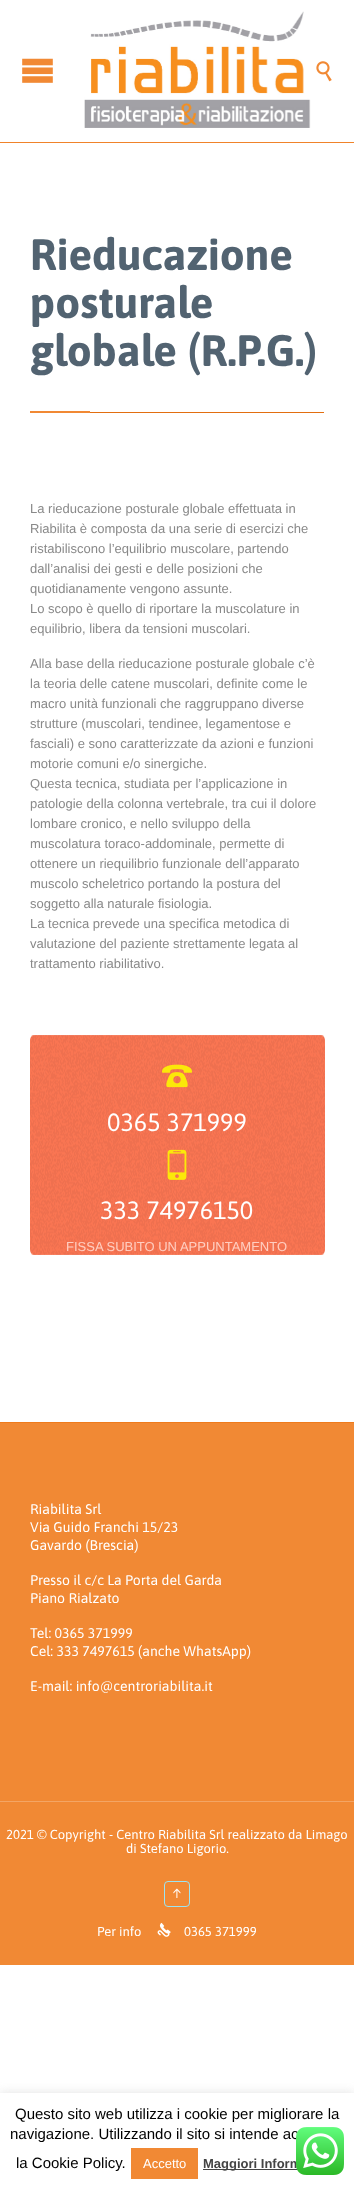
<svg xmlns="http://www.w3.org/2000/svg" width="354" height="2191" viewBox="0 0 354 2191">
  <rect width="100%" height="100%" fill="#fff"/>
  <image x="22" y="58" width="31" height="25" href="img/1.png"/>
  <path d="M0 142h354v1H0z" fill="#f0832a"/>
  <image x="84" y="11" width="227" height="117" href="img/2.png"/>
  <image x="316" y="61" width="16" height="21" href="img/3.png"/>
  <path d="M90 412h234v1H90z" fill="#e26e10"/>
  <path d="M30 411h60v2H30z" fill="#f18934"/>
  <image x="30" y="1035" width="295" height="220" href="img/4.png"/>
  <image x="162" y="1064" width="30" height="24" href="img/5.png"/>
  <image x="167" y="1149" width="20" height="31" href="img/6.png"/>
  <path d="M0 1423h354v378H0z" fill="#f18934"/>
  <path d="M0 1422h354v1H0z" fill="#ef7b1c"/>
  <path d="M0 1801h354v1H0z" fill="#f4a564"/>
  <path d="M0 1802h354v163H0z" fill="#f18934"/>
  <rect x="164.5" y="1881.5" width="25" height="25" rx="3.5" fill="none" stroke="#9ce4f1"/>
  <image x="157" y="1922" width="14" height="15" href="img/7.png"/>
  <path d="M0 2092h354v98H0z" fill="#acabab4d" filter="blur(5px)"/>
  <path d="M0 2093h354v98H0z" fill="#fff"/>
  <path d="M131 2148h67v31H131z" fill="#f18934"/>
  <path d="M203 2169h95v1H203z" fill="#444"/>
  <g font-family="Asap" font-size="44" font-weight="bold" fill="#526371">
    <text x="30" y="270">Rieducazione</text>
    <text x="30" y="318">posturale</text>
    <text x="30" y="366">globale (R.P.G.)</text>
  </g>
  <g font-family="Liberation Sans" font-size="13" fill="#898989">
    <text x="30" y="513">La rieducazione posturale globale effettuata in</text>
    <text x="30" y="533">Riabilita è composta da una serie di esercizi che</text>
    <text x="30" y="553">ristabiliscono l’equilibrio muscolare, partendo</text>
    <text x="30" y="573">dall’analisi dei gesti e delle posizioni che</text>
    <text x="30" y="593">quotidianamente vengono assunte.</text>
    <text x="30" y="613">Lo scopo è quello di riportare la muscolature in</text>
    <text x="30" y="633">equilibrio, libera da tensioni muscolari.</text>
    <text x="30" y="668">Alla base della rieducazione posturale globale c’è</text>
    <text x="30" y="688">la teoria delle catene muscolari, definite come le</text>
    <text x="30" y="708">macro unità funzionali che raggruppano diverse</text>
    <text x="30" y="728">strutture (muscolari, tendinee, legamentose e</text>
    <text x="30" y="748">fasciali) e sono caratterizzate da azioni e funzioni</text>
    <text x="30" y="768">motorie comuni e/o sinergiche.</text>
    <text x="30" y="788">Questa tecnica, studiata per l’applicazione in</text>
    <text x="30" y="808">patologie della colonna vertebrale, tra cui il dolore</text>
    <text x="30" y="828">lombare cronico, e nello sviluppo della</text>
    <text x="30" y="848">muscolatura toraco-addominale, permette di</text>
    <text x="30" y="868">ottenere un riequilibrio funzionale dell’apparato</text>
    <text x="30" y="888">muscolo scheletrico portando la postura del</text>
    <text x="30" y="908">soggetto alla naturale fisiologia.</text>
    <text x="30" y="928">La tecnica prevede una specifica metodica di</text>
    <text x="30" y="948">valutazione del paziente strettamente legata al</text>
    <text x="30" y="968">trattamento riabilitativo.</text>
  </g>
  <g font-family="Asap" font-size="25" fill="#fff">
    <text x="107" y="1131">0365 371999</text>
    <text x="100" y="1219">333 74976150</text>
  </g>
  <text x="66" y="1251" font-family="Liberation Sans" font-size="13" fill="#ffcec1">FISSA SUBITO UN APPUNTAMENTO</text>
  <g font-family="Asap" font-size="14" fill="#fff">
    <text x="30" y="1514">Riabilita Srl</text>
    <text x="30" y="1532">Via Guido Franchi 15/23</text>
    <text x="30" y="1550">Gavardo (Brescia)</text>
    <text x="30" y="1585">Presso il c/c La Porta del Garda</text>
    <text x="30" y="1603">Piano Rialzato</text>
    <text x="30" y="1638">Tel: 0365 371999</text>
    <text x="30" y="1656">Cel: 333 7497615 (anche WhatsApp)</text>
    <text x="30" y="1691">E-mail: info@centroriabilita.it</text>
  </g>
  <g font-family="Asap" font-size="13" fill="#fff">
    <text x="6" y="1839">2021 © Copyright - Centro Riabilita Srl realizzato da Limago</text>
    <text x="126" y="1853">di Stefano Ligorio.</text>
    <text x="173" y="1898">↑</text>
    <text x="97" y="1936">Per info</text>
    <text x="184" y="1936">0365 371999</text>
  </g>
  <g font-family="Liberation Sans" font-size="15" fill="#000">
    <text x="15" y="2119">Questo sito web utilizza i cookie per migliorare la</text>
    <text x="10" y="2139">navigazione. Utilizzando il sito si intende ac</text>
    <text x="16" y="2168">la Cookie Policy.</text>
  </g>
  <text x="143" y="2168" font-family="Liberation Sans" font-size="13" fill="#fff">Accetto</text>
  <text x="203" y="2168" font-family="Liberation Sans" font-size="13" font-weight="bold" fill="#444">Maggiori Inform</text>
  <image x="296" y="2127" width="48" height="48" href="img/8.png"/>
</svg>
